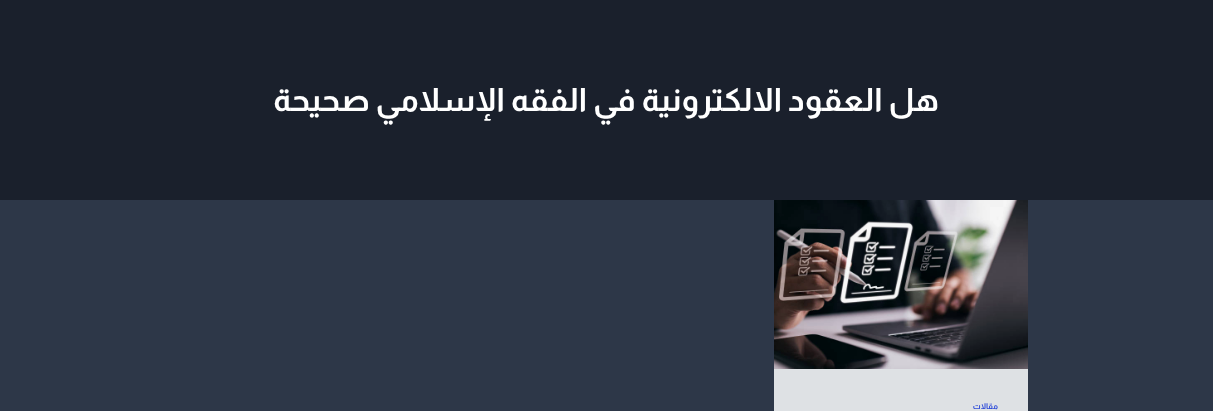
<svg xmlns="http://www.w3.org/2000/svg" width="1213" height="411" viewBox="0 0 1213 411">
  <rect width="100%" height="100%" fill="#2d3748"/>
  <path d="M0 0h1213v200H0z" fill="#1a202c"/>
  <path d="M774 369h254v42H774z" fill="#dee1e4"/>
  <image x="774" y="200" width="254" height="169" href="img/1.png"/>
  <text x="939" y="111" font-family="Almarai" font-size="32" font-weight="bold" direction="rtl" fill="#fff">هل العقود الالكترونية في الفقه الإسلامي صحيحة</text>
  <text x="998" y="409" font-family="Almarai" font-size="8" font-weight="bold" letter-spacing="0.5" direction="rtl" fill="#2e4cd9">مقالات</text>
</svg>
